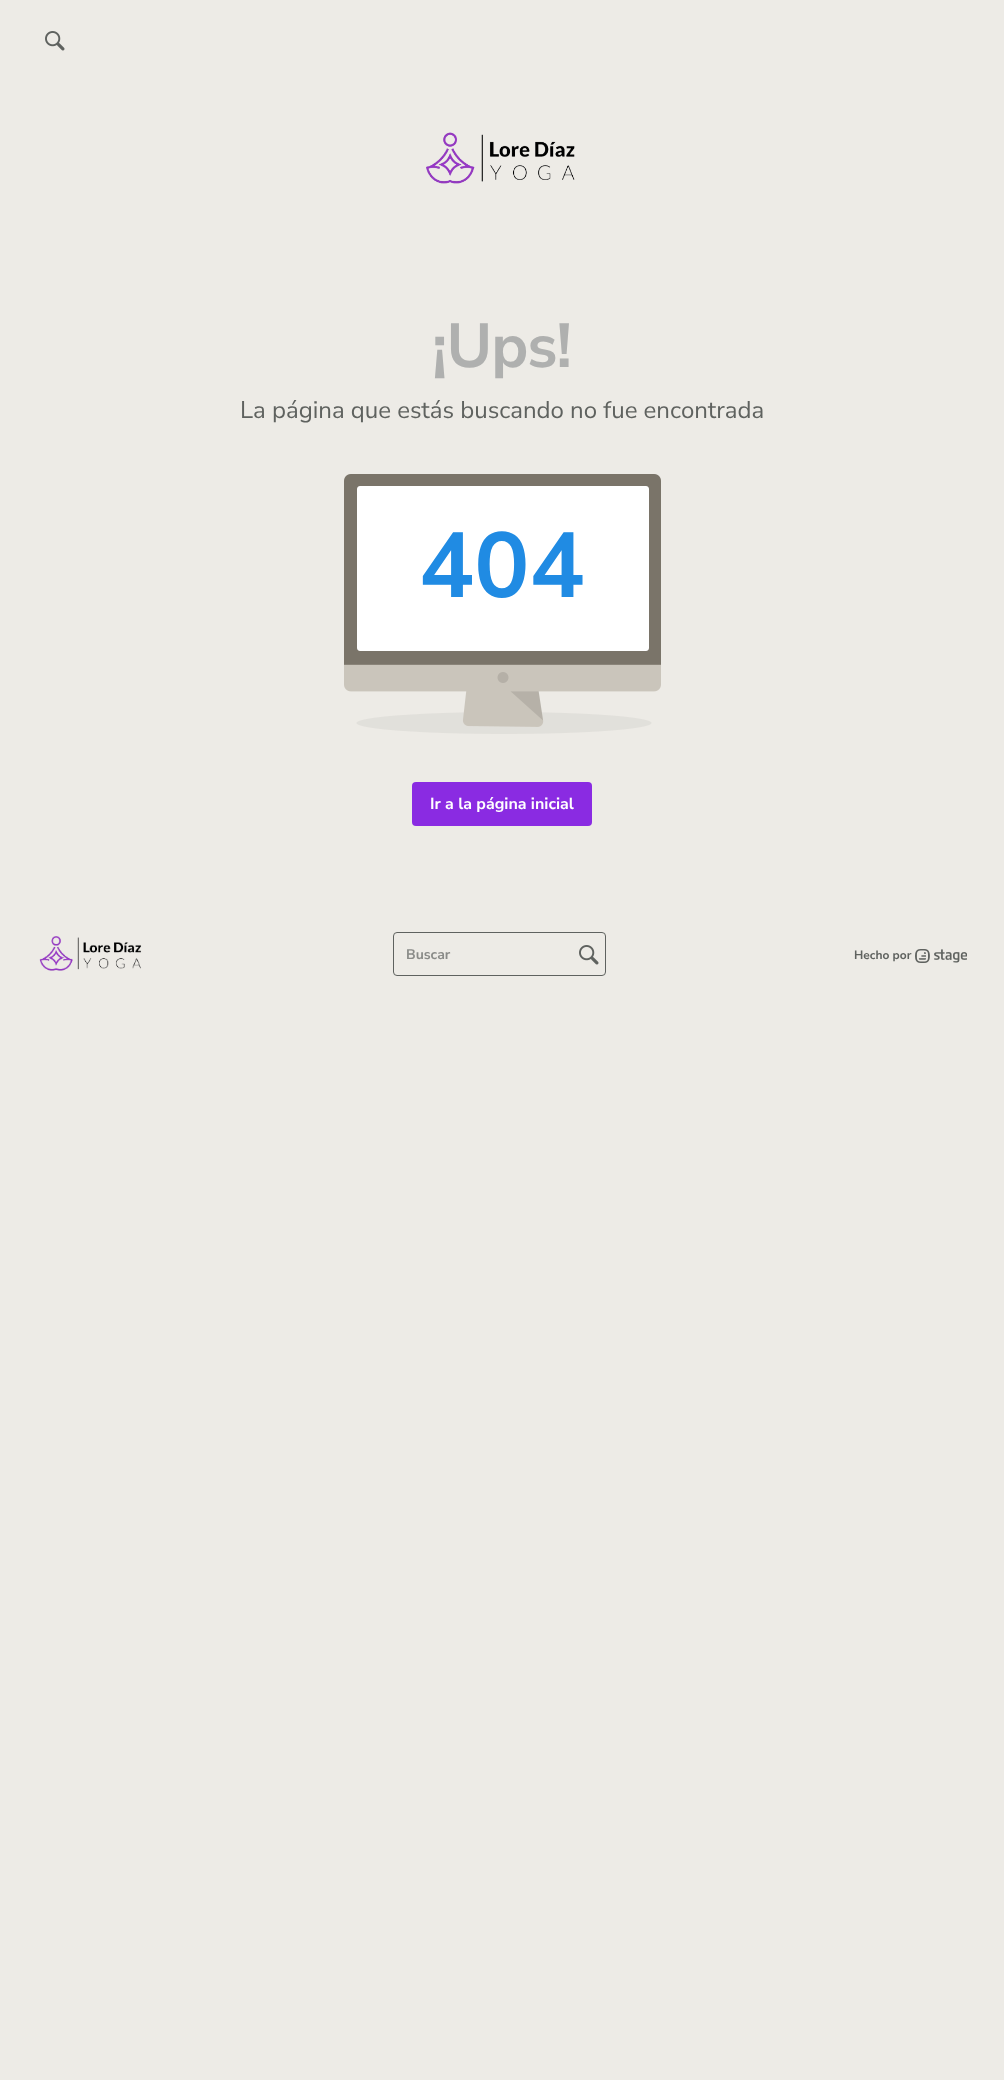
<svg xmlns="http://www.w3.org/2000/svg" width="1004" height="2080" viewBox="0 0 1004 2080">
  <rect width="100%" height="100%" fill="#edebe6"/>
  <image x="45" y="31" width="20" height="20" href="img/1.png"/>
  <image x="426" y="132" width="149" height="52" href="img/2.png"/>
  <image x="344" y="474" width="317" height="260" href="img/3.png"/>
  <rect x="412" y="782" width="180" height="44" rx="4" fill="#8a2be2"/>
  <image x="39" y="936" width="103" height="35" href="img/4.png"/>
  <rect x="393.5" y="932.5" width="212" height="43" rx="3.5" fill="none" stroke="#5f625f"/>
  <image x="579" y="945" width="20" height="20" href="img/1.png"/>
  <image x="915" y="949" width="52" height="14" href="img/5.png"/>
  <text x="432" y="367" font-family="Nunito Sans" font-size="62" font-weight="bold" letter-spacing="-1" fill="#afb0af">¡Ups!</text>
  <text x="240" y="418" font-family="Nunito Sans" font-size="24" fill="#5f625f">La página que estás buscando no fue encontrada</text>
  <text x="419" y="597" font-family="Nunito Sans" font-size="92" font-weight="bold" fill="#208be3">404</text>
  <text x="430" y="809" font-family="Nunito Sans" font-size="16" font-weight="bold" fill="#fff">Ir a la página inicial</text>
  <text x="406" y="959" font-family="Nunito Sans" font-size="14" font-weight="bold" fill="#8a8b88">Buscar</text>
  <text x="854" y="959" font-family="Nunito Sans" font-size="12" font-weight="bold" fill="#5f625f">Hecho por</text>
</svg>
